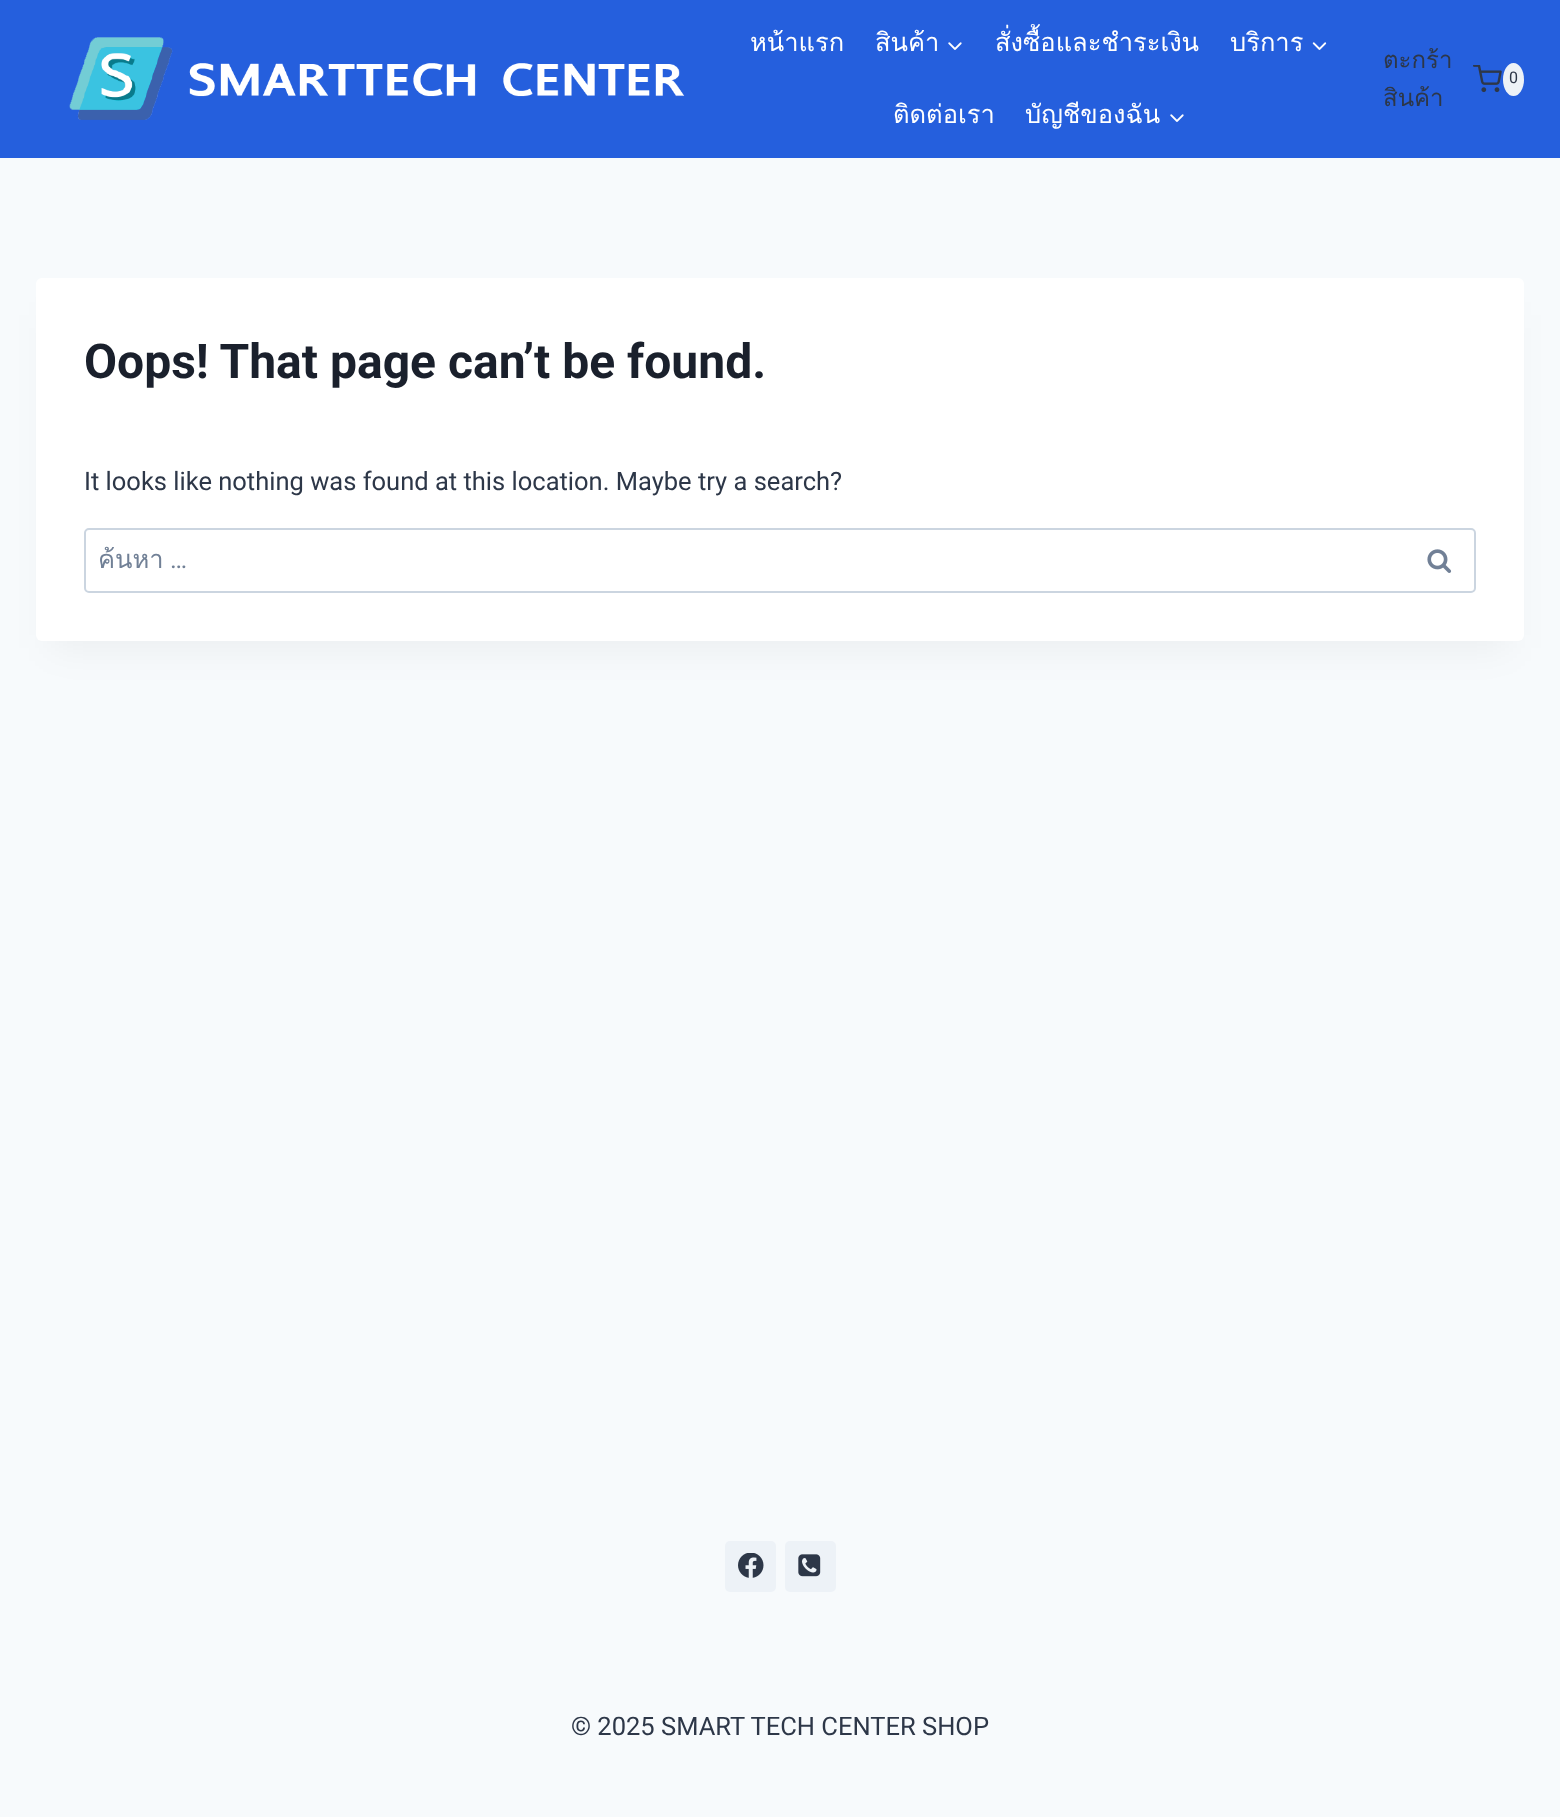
<svg xmlns="http://www.w3.org/2000/svg" width="1560" height="1817" viewBox="0 0 1560 1817">
  <defs>
    <clipPath id="clip1"><path d="M99 539h1262v40H99z"/></clipPath>
  </defs>
  <rect width="100%" height="100%" fill="#f7fafc"/>
  <path d="M0 0h1560v158H0z" fill="#255fdd"/>
  <image x="69" y="37" width="616" height="83" href="img/1.png"/>
  <image x="948" y="42" width="14" height="8" href="img/2.png"/>
  <image x="1312" y="42" width="15" height="8" href="img/3.png"/>
  <image x="1170" y="114" width="14" height="8" href="img/2.png"/>
  <image x="1473" y="65" width="29" height="28" href="img/4.png"/>
  <ellipse cx="1513.5" cy="79.5" rx="10.5" ry="16.5" fill="#edf2f7"/>
  <path d="M51 315h1458v333H51z" fill="#0000000d" filter="blur(19px)"/>
  <rect x="36" y="278" width="1488" height="363" rx="6" fill="#fff"/>
  <rect x="85" y="529" width="1390" height="63" rx="4" fill="none" stroke="#cbd5e0" stroke-width="2"/>
  <image x="1427" y="549" width="25" height="24" href="img/5.png"/>
  <rect x="725" y="1541" width="51" height="51" rx="5" fill="#edf2f7"/>
  <image x="738" y="1553" width="26" height="25" href="img/6.png"/>
  <rect x="785" y="1541" width="51" height="51" rx="5" fill="#edf2f7"/>
  <image x="798" y="1554" width="23" height="23" href="img/7.png"/>
  <g font-family="Loma" font-size="25.5" fill="#fff">
    <text x="750" y="51">หน้าแรก</text>
    <text x="875" y="51">สินค้า</text>
    <text x="995" y="51">สั่งซื้อและชำระเงิน</text>
    <text x="1230" y="51">บริการ</text>
    <text x="893" y="123">ติดต่อเรา</text>
    <text x="1025" y="123">บัญชีของฉัน</text>
  </g>
  <g font-family="Loma" font-size="24" fill="#2d3748">
    <text x="1383" y="68">ตะกร้า</text>
    <text x="1383" y="106">สินค้า</text>
  </g>
  <text x="1509" y="83" font-family="Roboto" font-size="16" fill="#2d3748">0</text>
  <text x="84" y="378" font-family="Roboto" font-size="48" font-weight="bold" fill="#1a202c">Oops! That page can’t be found.</text>
  <text x="84" y="490" font-family="Roboto" font-size="25.5" fill="#2d3748">It looks like nothing was found at this location. Maybe try a search?</text>
  <g clip-path="url(#clip1)">
    <text x="98" y="568" font-family="Loma" font-size="25.5" fill="#718096">ค้นหา</text>
  </g>
  <text x="170" y="568" font-family="Roboto" font-size="25.5" fill="#718096">…</text>
  <text x="571" y="1735" font-family="Roboto" font-size="25.5" fill="#2d3748">© 2025 SMART TECH CENTER SHOP</text>
</svg>
